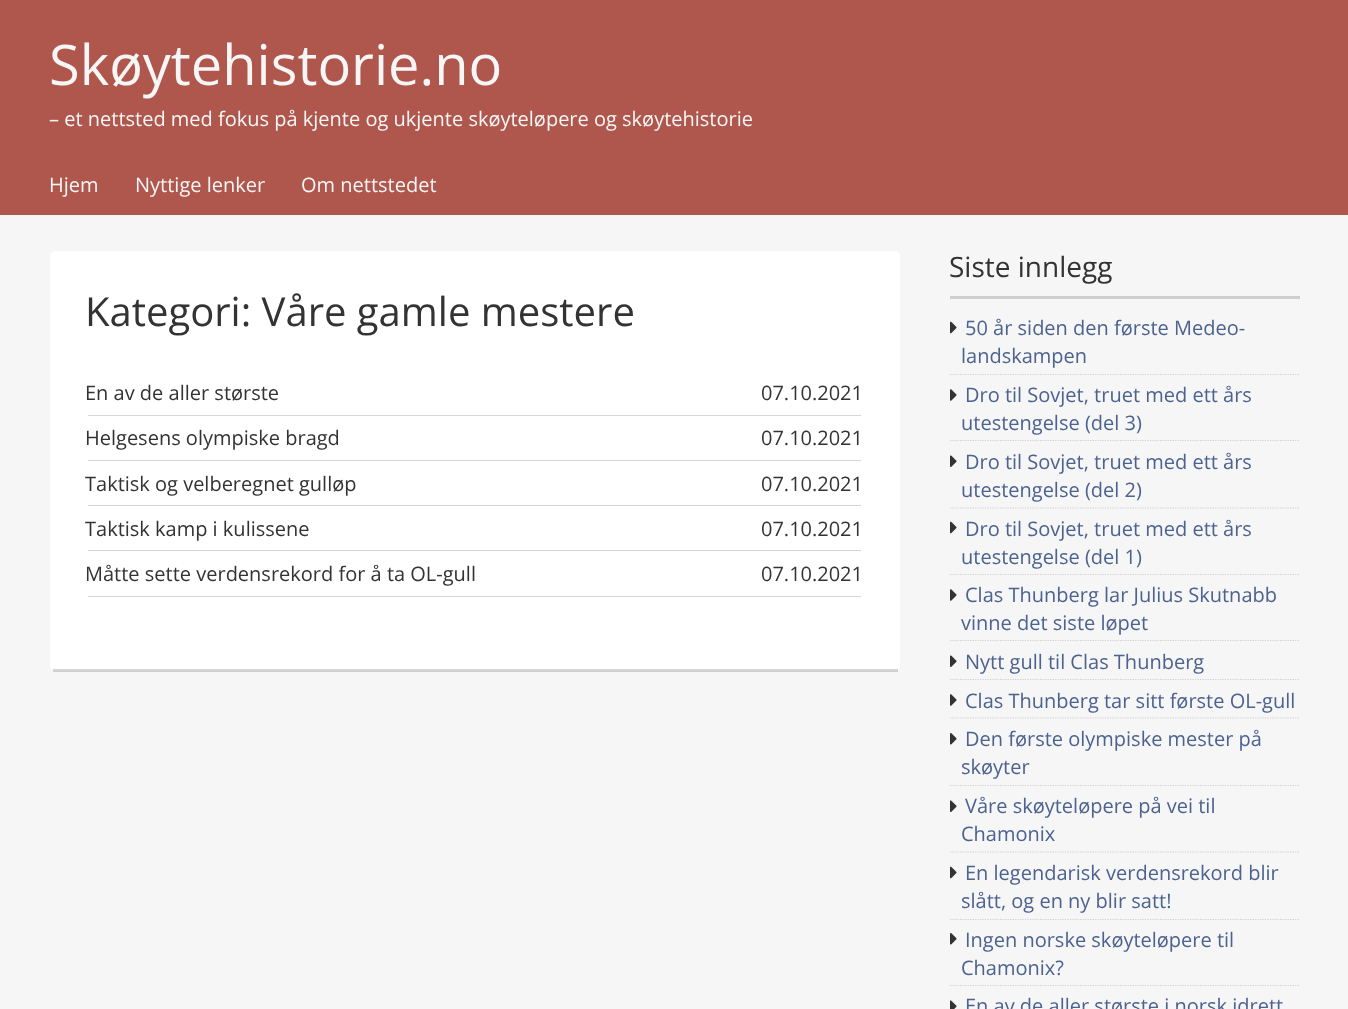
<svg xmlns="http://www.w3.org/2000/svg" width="1348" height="1009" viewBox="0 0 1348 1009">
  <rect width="100%" height="100%" fill="#f6f6f6"/>
  <path d="M0 0h1348v215H0z" fill="#af574d"/>
  <rect x="50" y="251" width="850" height="420" rx="5" fill="#fff"/>
  <path d="M53 669h845v3H53z" fill="#33333333"/>
  <path d="M88 415h773v1H88z" fill="#d6d6d6"/>
  <path d="M88 460h773v1H88z" fill="#d6d6d6"/>
  <path d="M88 505h773v1H88z" fill="#d6d6d6"/>
  <path d="M88 550h773v1H88z" fill="#d6d6d6"/>
  <path d="M88 596h773v1H88z" fill="#d6d6d6"/>
  <path d="M950 296h350v3H950z" fill="#cfcfcf"/>
  <image x="950" y="321" width="7" height="13" href="img/1.png"/>
  <path d="M950 374.5H1300" fill="none" stroke="#cfcfcf" stroke-width="1.2" stroke-dasharray="1.25 1.25"/>
  <image x="950" y="389" width="7" height="12" href="img/2.png"/>
  <path d="M950 440.5H1300" fill="none" stroke="#cfcfcf" stroke-width="1.2" stroke-dasharray="1.25 1.25"/>
  <image x="950" y="455" width="7" height="12" href="img/3.png"/>
  <path d="M950 508H1300" fill="none" stroke="#cfcfcf" stroke-width="1.2" stroke-dasharray="1.25 1.25"/>
  <image x="950" y="521" width="7" height="13" href="img/1.png"/>
  <path d="M950 574.5H1300" fill="none" stroke="#cfcfcf" stroke-width="1.2" stroke-dasharray="1.25 1.25"/>
  <image x="950" y="589" width="7" height="12" href="img/2.png"/>
  <path d="M950 640.5H1300" fill="none" stroke="#cfcfcf" stroke-width="1.2" stroke-dasharray="1.25 1.25"/>
  <image x="950" y="655" width="7" height="12" href="img/3.png"/>
  <path d="M950 679.5H1300" fill="none" stroke="#cfcfcf" stroke-width="1.2" stroke-dasharray="1.25 1.25"/>
  <image x="950" y="694" width="7" height="12" href="img/2.png"/>
  <path d="M950 718H1300" fill="none" stroke="#cfcfcf" stroke-width="1.2" stroke-dasharray="1.25 1.25"/>
  <image x="950" y="733" width="7" height="12" href="img/4.png"/>
  <path d="M950 785.5H1300" fill="none" stroke="#cfcfcf" stroke-width="1.2" stroke-dasharray="1.25 1.25"/>
  <image x="950" y="800" width="7" height="12" href="img/3.png"/>
  <path d="M950 852H1300" fill="none" stroke="#cfcfcf" stroke-width="1.2" stroke-dasharray="1.25 1.25"/>
  <image x="950" y="866" width="7" height="13" href="img/1.png"/>
  <path d="M950 919.5H1300" fill="none" stroke="#cfcfcf" stroke-width="1.2" stroke-dasharray="1.25 1.25"/>
  <image x="950" y="933" width="7" height="12" href="img/4.png"/>
  <path d="M950 985.5H1300" fill="none" stroke="#cfcfcf" stroke-width="1.2" stroke-dasharray="1.25 1.25"/>
  <image x="950" y="1000" width="7" height="9" href="img/5.png"/>
  <text x="49" y="85" font-family="Open Sans" font-size="56" fill="#f6f6f6">Skøytehistorie.no</text>
  <g font-family="Open Sans" font-size="20" fill="#f6f6f6">
    <text x="49" y="126">– et nettsted med fokus på kjente og ukjente skøyteløpere og skøytehistorie</text>
    <text x="49" y="192">Hjem</text>
    <text x="135" y="192">Nyttige lenker</text>
    <text x="301" y="192">Om nettstedet</text>
  </g>
  <text x="85" y="326" font-family="Open Sans" font-size="40" fill="#333">Kategori: Våre gamle mestere</text>
  <g font-family="Open Sans" font-size="20" fill="#333">
    <text x="85" y="400">En av de aller største</text>
    <text x="761" y="400">07.10.2021</text>
    <text x="85" y="445">Helgesens olympiske bragd</text>
    <text x="761" y="445">07.10.2021</text>
    <text x="85" y="491">Taktisk og velberegnet gulløp</text>
    <text x="761" y="491">07.10.2021</text>
    <text x="85" y="536">Taktisk kamp i kulissene</text>
    <text x="761" y="536">07.10.2021</text>
    <text x="85" y="581">Måtte sette verdensrekord for å ta OL-gull</text>
    <text x="761" y="581">07.10.2021</text>
  </g>
  <text x="949" y="277" font-family="Open Sans" font-size="28" fill="#333">Siste innlegg</text>
  <g font-family="Open Sans" font-size="20" fill="#4c628f">
    <text x="965" y="335">50 år siden den første Medeo-</text>
    <text x="961" y="363">landskampen</text>
    <text x="965" y="402">Dro til Sovjet, truet med ett års</text>
    <text x="961" y="430">utestengelse (del 3)</text>
    <text x="965" y="469">Dro til Sovjet, truet med ett års</text>
    <text x="961" y="497">utestengelse (del 2)</text>
    <text x="965" y="536">Dro til Sovjet, truet med ett års</text>
    <text x="961" y="564">utestengelse (del 1)</text>
    <text x="965" y="602">Clas Thunberg lar Julius Skutnabb</text>
    <text x="961" y="630">vinne det siste løpet</text>
    <text x="965" y="669">Nytt gull til Clas Thunberg</text>
    <text x="965" y="708">Clas Thunberg tar sitt første OL-gull</text>
    <text x="965" y="746">Den første olympiske mester på</text>
    <text x="961" y="774">skøyter</text>
    <text x="965" y="813">Våre skøyteløpere på vei til</text>
    <text x="961" y="841">Chamonix</text>
    <text x="965" y="880">En legendarisk verdensrekord blir</text>
    <text x="961" y="908">slått, og en ny blir satt!</text>
    <text x="965" y="947">Ingen norske skøyteløpere til</text>
    <text x="961" y="975">Chamonix?</text>
    <text x="965" y="1013">En av de aller største i norsk idrett</text>
  </g>
</svg>
